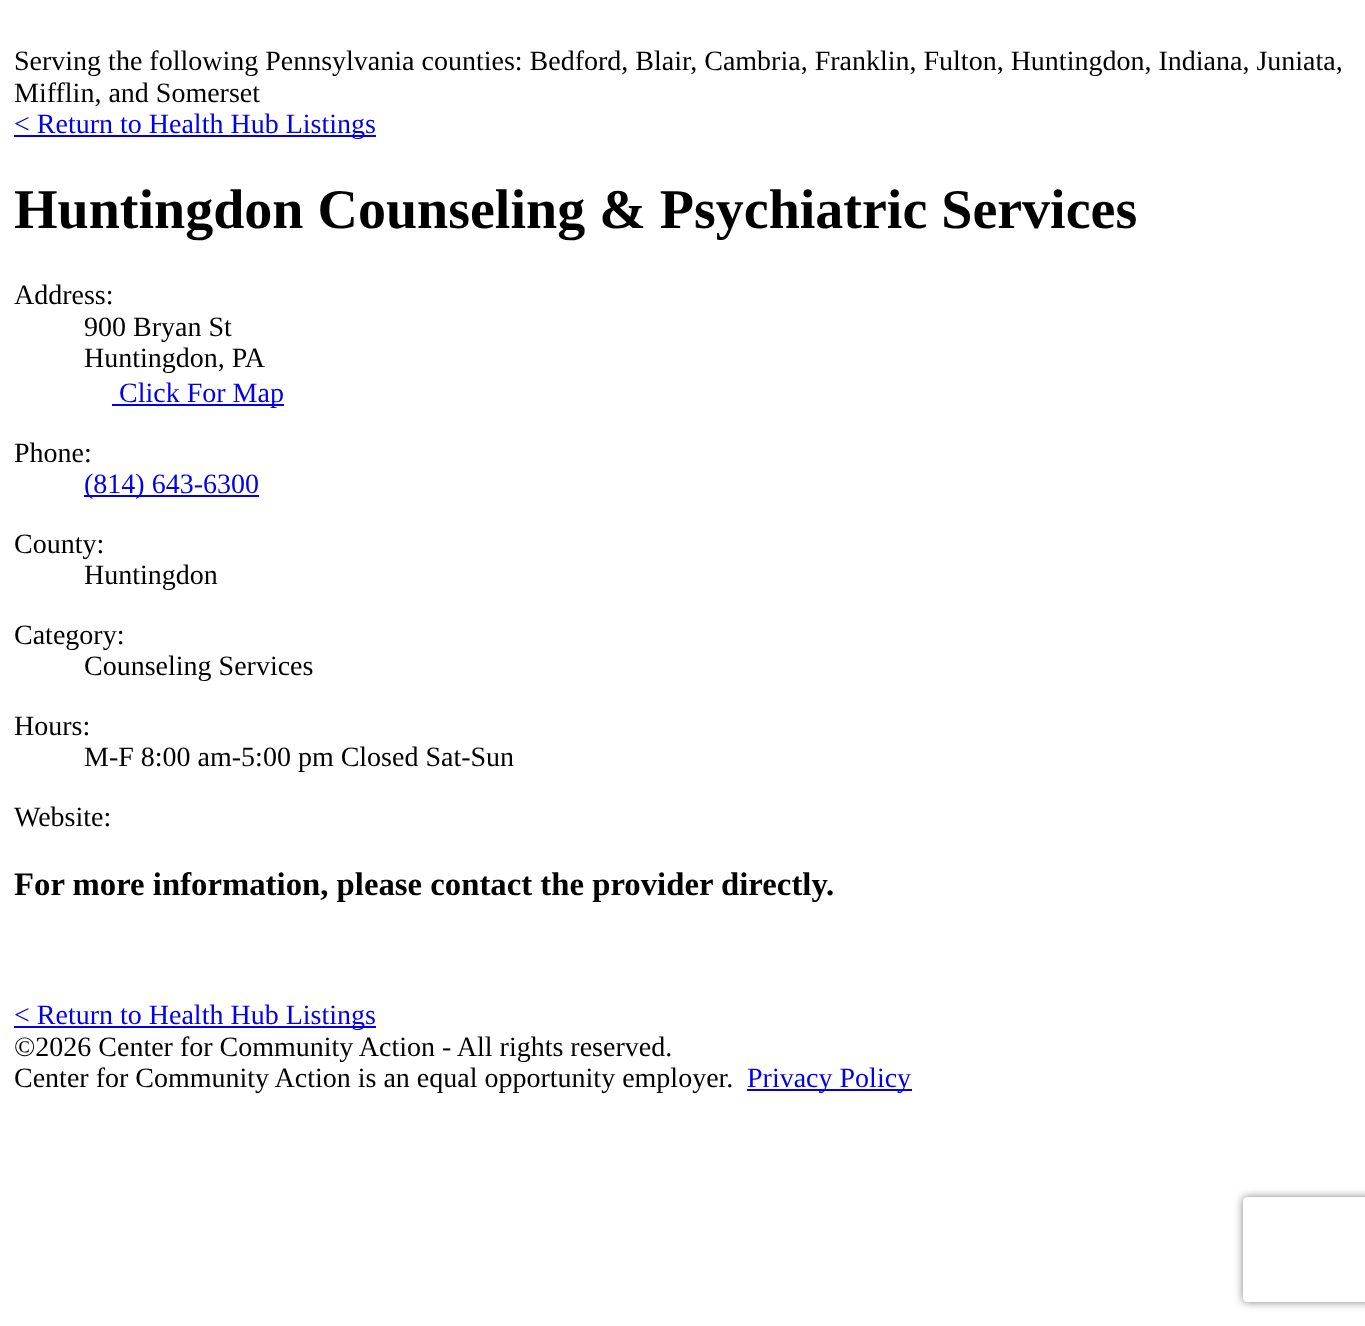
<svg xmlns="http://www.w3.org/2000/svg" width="1365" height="1326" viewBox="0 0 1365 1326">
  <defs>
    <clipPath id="clip1"><path d="M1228 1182H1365V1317H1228ZM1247 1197H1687C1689 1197 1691 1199 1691 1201V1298C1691 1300 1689 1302 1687 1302H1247C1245 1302 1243 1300 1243 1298V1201C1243 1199 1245 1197 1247 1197Z" clip-rule="evenodd"/></clipPath>
  </defs>
  <rect width="100%" height="100%" fill="#fff"/>
  <path d="M14 135h362v2H14z" fill="#00e"/>
  <path d="M112 404h172v2H112z" fill="#00e"/>
  <path d="M84 495h175v2H84z" fill="#00e"/>
  <path d="M14 1026h362v2H14z" fill="#00e"/>
  <path d="M747 1089h165v2H747z" fill="#00e"/>
  <g clip-path="url(#clip1)">
    <rect x="1243" y="1197" width="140" height="105" rx="4" fill="#808080" filter="blur(4.5px)"/>
  </g>
  <g font-family="Liberation Serif" font-size="28" fill="#000">
    <text x="14" y="70">Serving the following Pennsylvania counties: Bedford, Blair, Cambria, Franklin, Fulton, Huntingdon, Indiana, Juniata,</text>
    <text x="14" y="102">Mifflin, and Somerset</text>
  </g>
  <text x="14" y="133" font-family="Liberation Serif" font-size="28" fill="#00e">&lt; Return to Health Hub Listings</text>
  <text x="14" y="228" font-family="Liberation Serif" font-size="56" font-weight="bold" fill="#000">Huntingdon Counseling &amp; Psychiatric Services</text>
  <g font-family="Liberation Serif" font-size="28" fill="#000">
    <text x="14" y="304">Address:</text>
    <text x="84" y="336">900 Bryan St</text>
    <text x="84" y="367">Huntingdon, PA</text>
  </g>
  <text x="119" y="402" font-family="Liberation Serif" font-size="28" fill="#00e">Click For Map</text>
  <text x="14" y="462" font-family="Liberation Serif" font-size="28" fill="#000">Phone:</text>
  <text x="84" y="493" font-family="Liberation Serif" font-size="28" fill="#00e">(814) 643-6300</text>
  <g font-family="Liberation Serif" font-size="28" fill="#000">
    <text x="14" y="553">County:</text>
    <text x="84" y="584">Huntingdon</text>
    <text x="14" y="644">Category:</text>
    <text x="84" y="675">Counseling Services</text>
    <text x="14" y="735">Hours:</text>
    <text x="84" y="766">M-F 8:00 am-5:00 pm Closed Sat-Sun</text>
    <text x="14" y="826">Website:</text>
  </g>
  <text x="14" y="895" font-family="Liberation Serif" font-size="32.75" font-weight="bold" fill="#000">For more information, please contact the provider directly.</text>
  <text x="14" y="1024" font-family="Liberation Serif" font-size="28" fill="#00e">&lt; Return to Health Hub Listings</text>
  <g font-family="Liberation Serif" font-size="28" fill="#000">
    <text x="14" y="1056">©2026 Center for Community Action - All rights reserved.</text>
    <text x="14" y="1087">Center for Community Action is an equal opportunity employer.</text>
  </g>
  <text x="747" y="1087" font-family="Liberation Serif" font-size="28" fill="#00e">Privacy Policy</text>
</svg>
